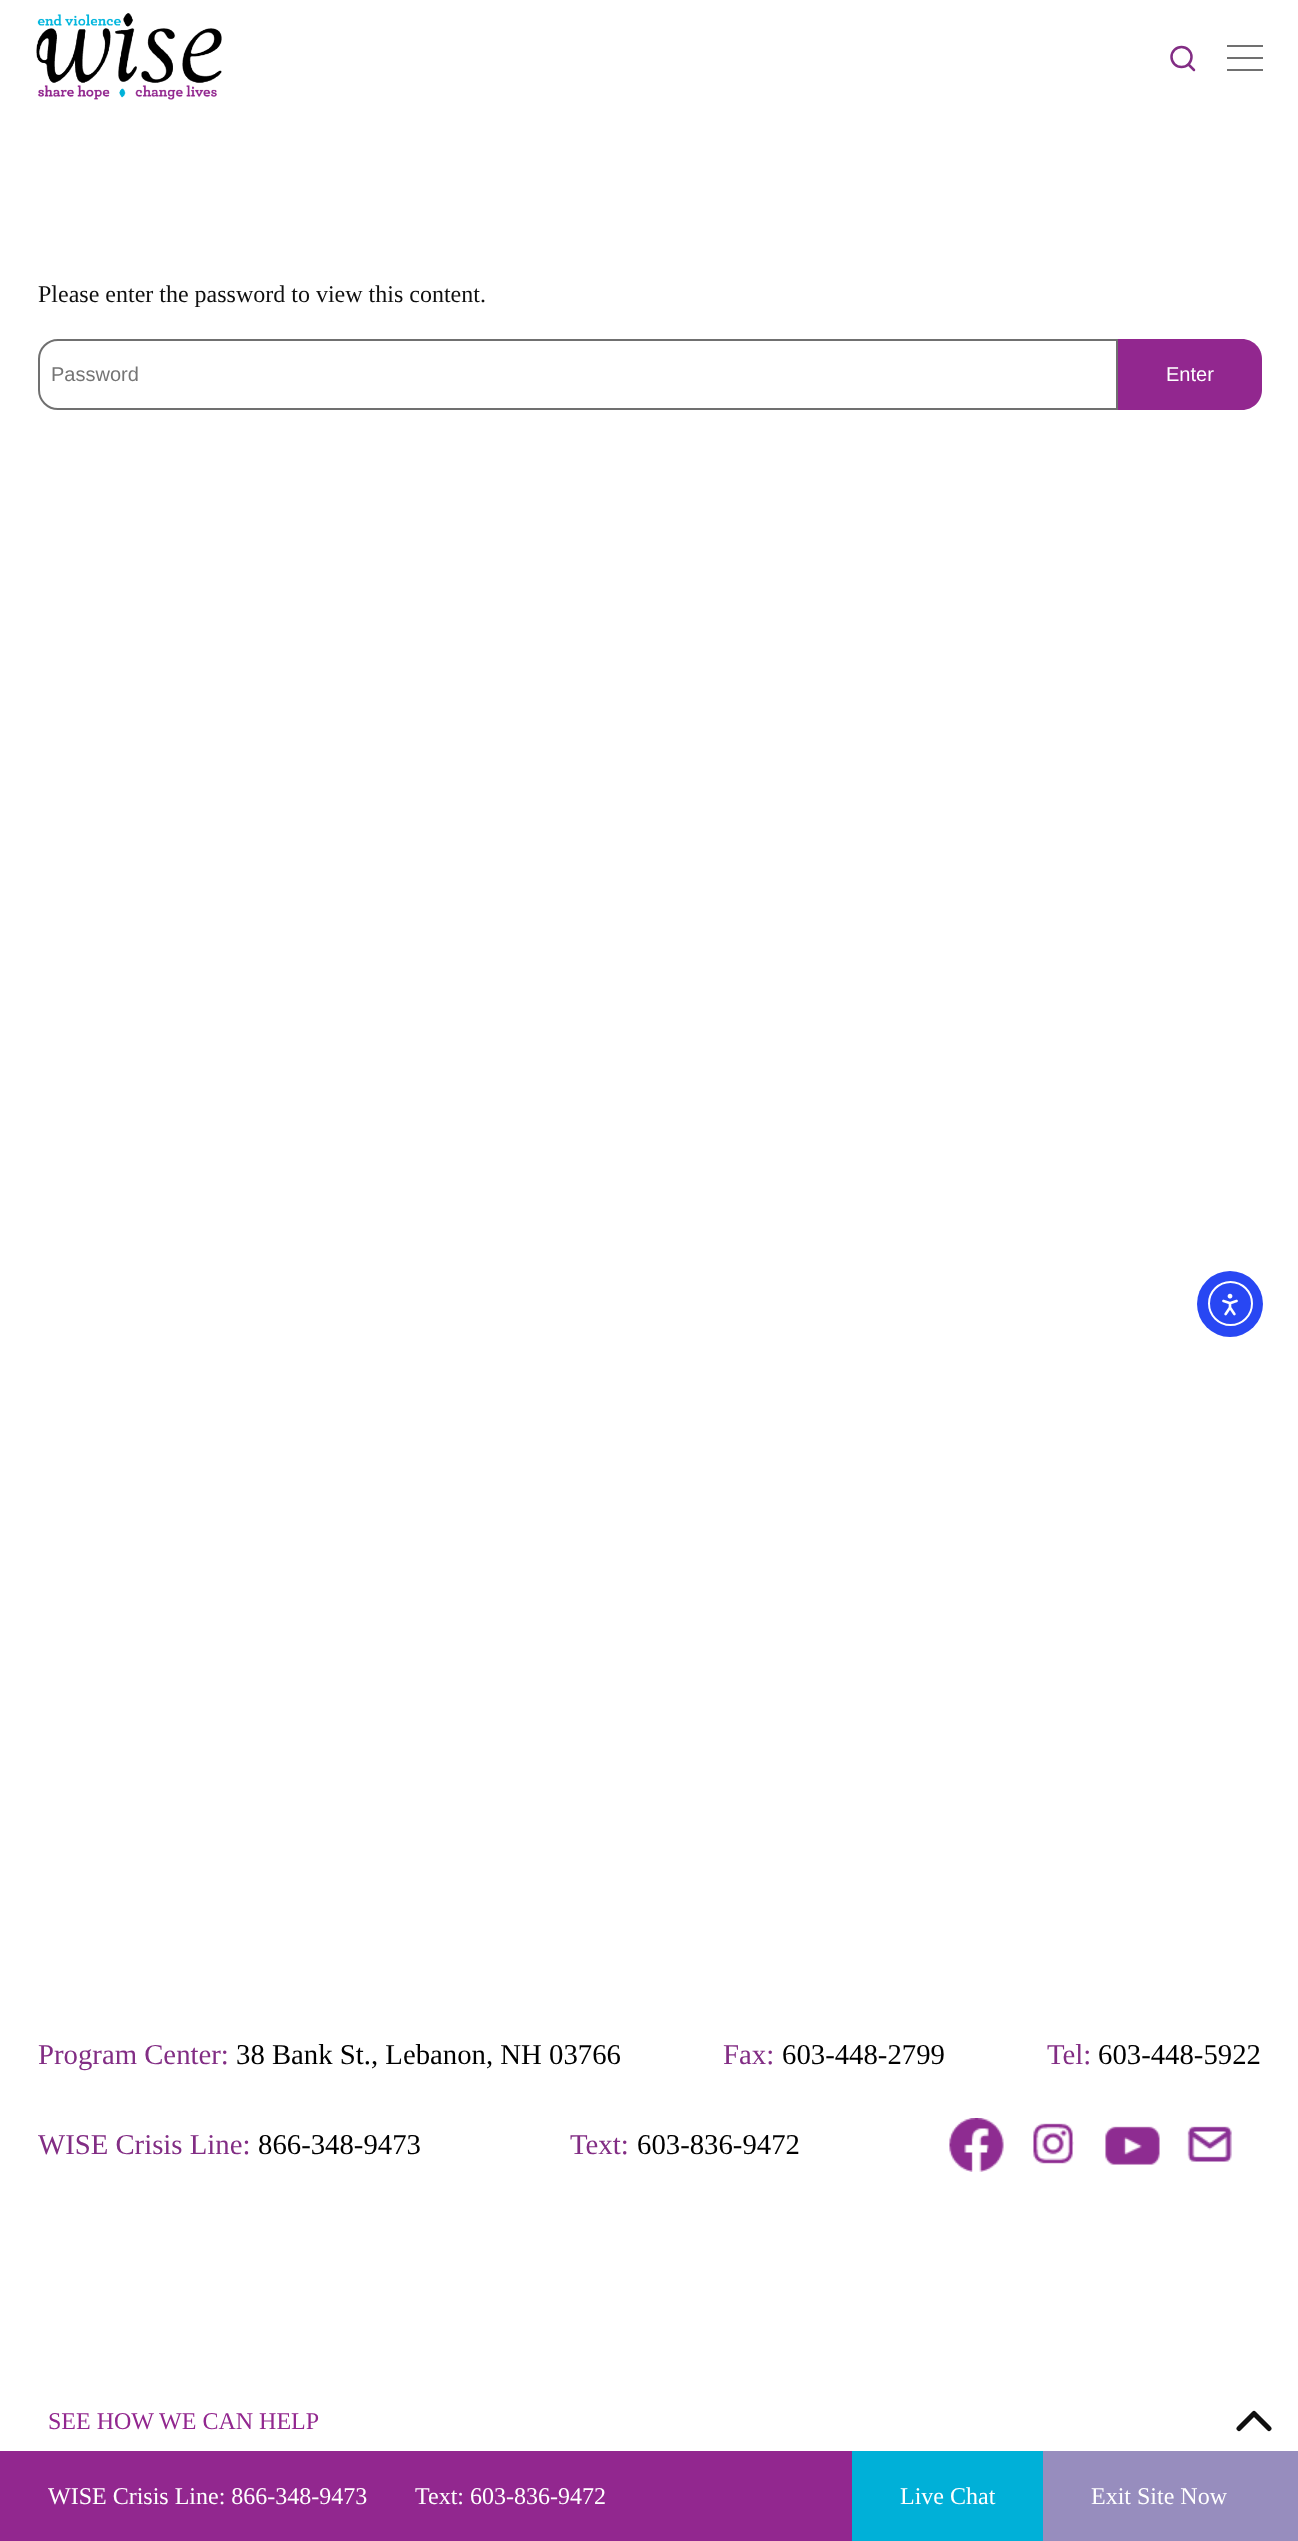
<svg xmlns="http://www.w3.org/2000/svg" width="1298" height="2541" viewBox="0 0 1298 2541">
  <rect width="100%" height="100%" fill="#fff"/>
  <image x="36" y="13" width="186" height="87" href="img/1.png"/>
  <circle cx="1181.5" cy="57" r="10" fill="none" stroke="#822d84" stroke-width="2.5"/>
  <path d="M1194 70L1188.5 64.5" fill="none" stroke="#822d84" stroke-width="2.5" stroke-linecap="round" stroke-linejoin="round"/>
  <path d="M1227 45h36v2H1227z" fill="#707070"/>
  <path d="M1227 57h36v2H1227z" fill="#707070"/>
  <path d="M1227 69h36v2H1227z" fill="#707070"/>
  <path d="M58 340H1117V409H58C47.5 409 39 400.5 39 390V359C39 348.5 47.5 340 58 340Z" fill="none" stroke="#707070" stroke-width="2"/>
  <path d="M1118 339H1242C1253 339 1262 348 1262 359V390C1262 401 1253 410 1242 410H1118Z" fill="#92278f"/>
  <image x="949" y="2118" width="55" height="54" href="img/2.png"/>
  <image x="1033" y="2123" width="41" height="41" href="img/3.png"/>
  <image x="1105" y="2126" width="55" height="39" href="img/4.png"/>
  <image x="1187" y="2126" width="45" height="36" href="img/5.png"/>
  <path d="M1269 2428.5L1254 2413.5L1239 2428.5" fill="none" stroke="#101010" stroke-width="5" stroke-linecap="round" stroke-linejoin="round"/>
  <path d="M0 2451h852v90H0z" fill="#92278f"/>
  <path d="M852 2451h191v90H852z" fill="#00b0d8"/>
  <path d="M1043 2451h255v90H1043z" fill="#978dbe"/>
  <circle cx="1230" cy="1304" r="33" fill="#2847f3"/>
  <circle cx="1230.5" cy="1303.5" r="21.5" fill="none" stroke="#fff" stroke-width="2"/>
  <image x="1222" y="1293" width="16" height="23" href="img/6.png"/>
  <text x="38" y="302" font-family="Liberation Serif" font-size="24" fill="#101010">Please enter the password to view this content.</text>
  <text x="51" y="381" font-family="Liberation Sans" font-size="20" fill="#757575">Password</text>
  <text x="1166" y="381" font-family="Liberation Sans" font-size="20" fill="#fff">Enter</text>
  <text x="38" y="2064" font-family="Liberation Serif" font-size="28.75" fill="#822d84">Program Center:</text>
  <text x="236" y="2064" font-family="Liberation Serif" font-size="28.75" fill="#000">38 Bank St., Lebanon, NH 03766</text>
  <text x="723" y="2064" font-family="Liberation Serif" font-size="28.75" fill="#822d84">Fax:</text>
  <text x="782" y="2064" font-family="Liberation Serif" font-size="28.75" fill="#000">603-448-2799</text>
  <text x="1047" y="2064" font-family="Liberation Serif" font-size="28.75" fill="#822d84">Tel:</text>
  <text x="1098" y="2064" font-family="Liberation Serif" font-size="28.75" fill="#000">603-448-5922</text>
  <text x="38" y="2154" font-family="Liberation Serif" font-size="28.75" fill="#822d84">WISE Crisis Line:</text>
  <text x="258" y="2154" font-family="Liberation Serif" font-size="28.75" fill="#000">866-348-9473</text>
  <text x="570" y="2154" font-family="Liberation Serif" font-size="28.75" fill="#822d84">Text:</text>
  <text x="637" y="2154" font-family="Liberation Serif" font-size="28.75" fill="#000">603-836-9472</text>
  <text x="48" y="2429" font-family="Liberation Serif" font-size="24" fill="#92278f">SEE HOW WE CAN HELP</text>
  <g font-family="Liberation Serif" font-size="24" fill="#fff">
    <text x="48" y="2504">WISE Crisis Line: 866-348-9473</text>
    <text x="415" y="2504">Text: 603-836-9472</text>
    <text x="900" y="2504">Live Chat</text>
    <text x="1091" y="2504">Exit Site Now</text>
  </g>
</svg>
